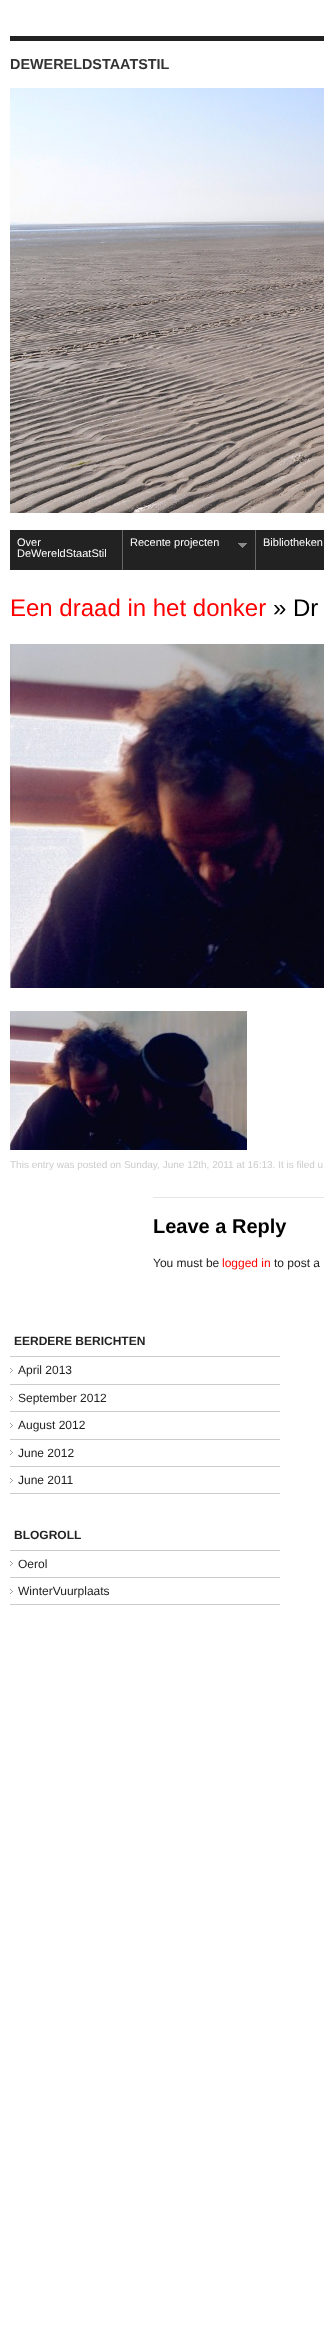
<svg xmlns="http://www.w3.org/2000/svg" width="324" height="2333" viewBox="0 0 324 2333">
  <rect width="100%" height="100%" fill="#fff"/>
  <path d="M10 36h314v5H10z" fill="#222"/>
  <image x="10" y="88" width="314" height="425" href="img/1.png"/>
  <path d="M10 530h314v40H10z" fill="#222"/>
  <path d="M122 530h1v40H122z" fill="#666"/>
  <path d="M255 530h1v40H255z" fill="#666"/>
  <image x="238" y="543" width="9" height="5" href="img/2.png"/>
  <image x="10" y="644" width="314" height="344" href="img/3.png"/>
  <image x="10" y="1011" width="237" height="139" href="img/4.png"/>
  <path d="M153 1197h171v1H153z" fill="#e7e7e7"/>
  <path d="M10 1356h270v1H10z" fill="#ccc"/>
  <image x="10" y="1368" width="3" height="5" href="img/5.png"/>
  <path d="M10 1384h270v1H10z" fill="#ccc"/>
  <image x="10" y="1396" width="3" height="5" href="img/5.png"/>
  <path d="M10 1411h270v1H10z" fill="#ccc"/>
  <image x="10" y="1423" width="3" height="5" href="img/5.png"/>
  <path d="M10 1439h270v1H10z" fill="#ccc"/>
  <image x="10" y="1450" width="3" height="5" href="img/5.png"/>
  <path d="M10 1466h270v1H10z" fill="#ccc"/>
  <image x="10" y="1478" width="3" height="5" href="img/5.png"/>
  <path d="M10 1493h270v1H10z" fill="#ccc"/>
  <path d="M10 1550h270v1H10z" fill="#ccc"/>
  <image x="10" y="1561" width="3" height="5" href="img/5.png"/>
  <path d="M10 1577h270v1H10z" fill="#ccc"/>
  <image x="10" y="1589" width="3" height="5" href="img/5.png"/>
  <path d="M10 1604h270v1H10z" fill="#ccc"/>
  <text x="10" y="69" font-family="Liberation Sans" font-size="14.4" font-weight="bold" fill="#333">DEWERELDSTAATSTIL</text>
  <g font-family="Liberation Sans" font-size="11" fill="#fff">
    <text x="17" y="546">Over</text>
    <text x="17" y="557">DeWereldStaatStil</text>
    <text x="130" y="546">Recente projecten</text>
    <text x="263" y="546">Bibliotheken</text>
  </g>
  <text x="10" y="616" font-family="Liberation Sans" font-size="24" fill="#f00">Een draad in het donker</text>
  <text x="273" y="616" font-family="Liberation Sans" font-size="24" fill="#000">» Dr</text>
  <text x="10" y="1168" font-family="Liberation Sans" font-size="10" fill="#ccc">This entry was posted on Sunday, June 12th, 2011 at 16:13. It is filed u</text>
  <text x="153" y="1233" font-family="Liberation Sans" font-size="20" font-weight="bold" fill="#000">Leave a Reply</text>
  <text x="153" y="1267" font-family="Liberation Sans" font-size="12" fill="#222">You must be</text>
  <text x="222" y="1267" font-family="Liberation Sans" font-size="12" fill="#f00">logged in</text>
  <text x="274" y="1267" font-family="Liberation Sans" font-size="12" fill="#222">to post a</text>
  <text x="14" y="1345" font-family="Liberation Sans" font-size="12" font-weight="bold" fill="#222">EERDERE BERICHTEN</text>
  <g font-family="Liberation Sans" font-size="12" fill="#222">
    <text x="18" y="1374">April 2013</text>
    <text x="18" y="1402">September 2012</text>
    <text x="18" y="1429">August 2012</text>
    <text x="18" y="1457">June 2012</text>
    <text x="18" y="1484">June 2011</text>
  </g>
  <text x="14" y="1539" font-family="Liberation Sans" font-size="12" font-weight="bold" fill="#222">BLOGROLL</text>
  <g font-family="Liberation Sans" font-size="12" fill="#222">
    <text x="18" y="1568">Oerol</text>
    <text x="18" y="1595">WinterVuurplaats</text>
  </g>
</svg>
